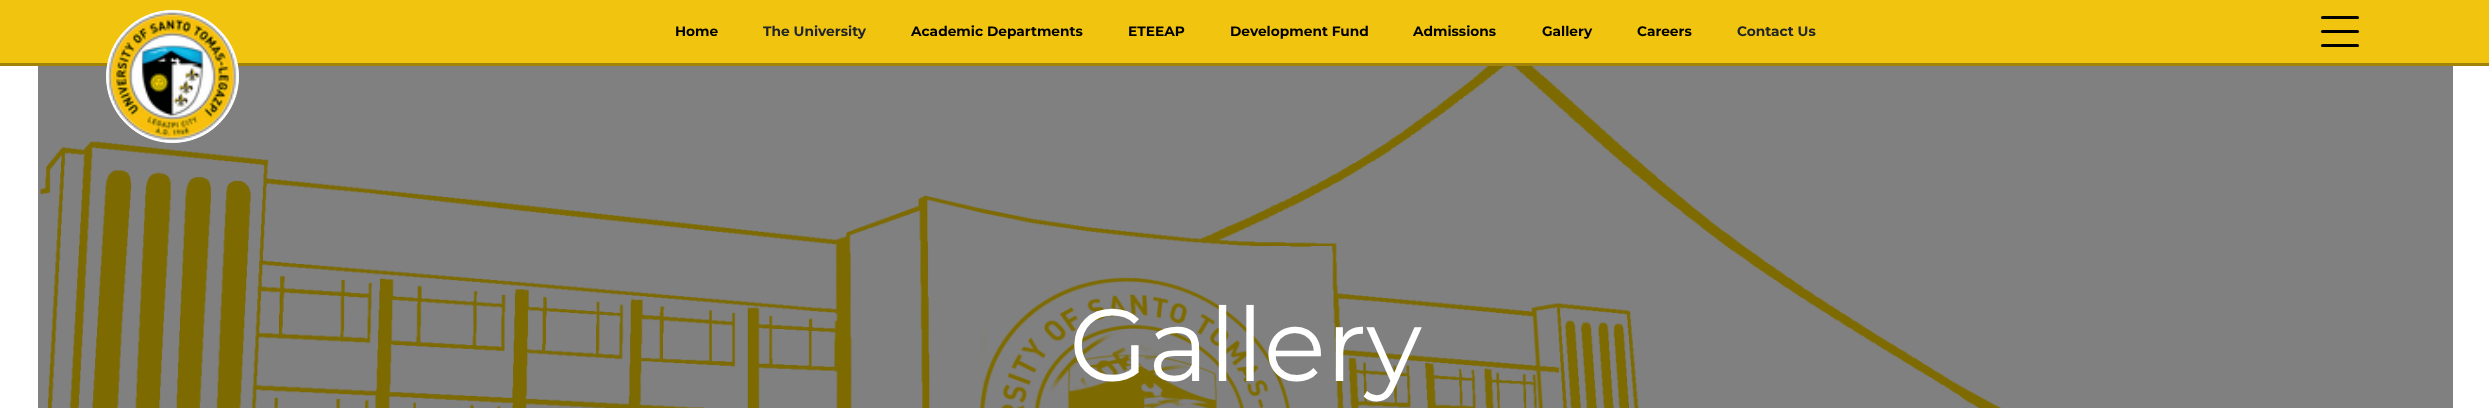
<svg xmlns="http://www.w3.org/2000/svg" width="2489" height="408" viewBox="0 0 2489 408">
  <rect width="100%" height="100%" fill="#fff"/>
  <path d="M38 66h2415v342H38z" fill="#808080"/>
  <path d="M0 0h2489v63H0z" fill="#f1c40f"/>
  <path d="M0 63h2489v3H0z" fill="#a1830a"/>
  <image x="40" y="66" width="1962" height="342" href="img/2.png"/>
  <circle cx="172.5" cy="76.5" r="66" fill="#fff" stroke="#fff"/>
  <image x="108" y="12" width="129" height="129" href="img/1.png"/>
  <rect x="2321" y="16" width="38" height="3" rx="1.5" fill="#000"/>
  <rect x="2321" y="30" width="38" height="3" rx="1.5" fill="#000"/>
  <rect x="2321" y="44" width="38" height="3" rx="1.5" fill="#000"/>
  <text x="675" y="36" font-family="Montserrat" font-size="13.75" font-weight="bold" fill="#000">Home</text>
  <text x="763" y="36" font-family="Montserrat" font-size="13.75" font-weight="bold" fill="#212529">The University</text>
  <g font-family="Montserrat" font-size="13.75" font-weight="bold" fill="#000">
    <text x="911" y="36">Academic Departments</text>
    <text x="1128" y="36">ETEEAP</text>
    <text x="1230" y="36">Development Fund</text>
    <text x="1413" y="36">Admissions</text>
    <text x="1542" y="36">Gallery</text>
    <text x="1637" y="36">Careers</text>
  </g>
  <text x="1737" y="36" font-family="Montserrat" font-size="13.75" font-weight="bold" fill="#212529">Contact Us</text>
  <text x="1069" y="381" font-family="Montserrat" font-size="102.5" fill="#fff">Gallery</text>
</svg>
